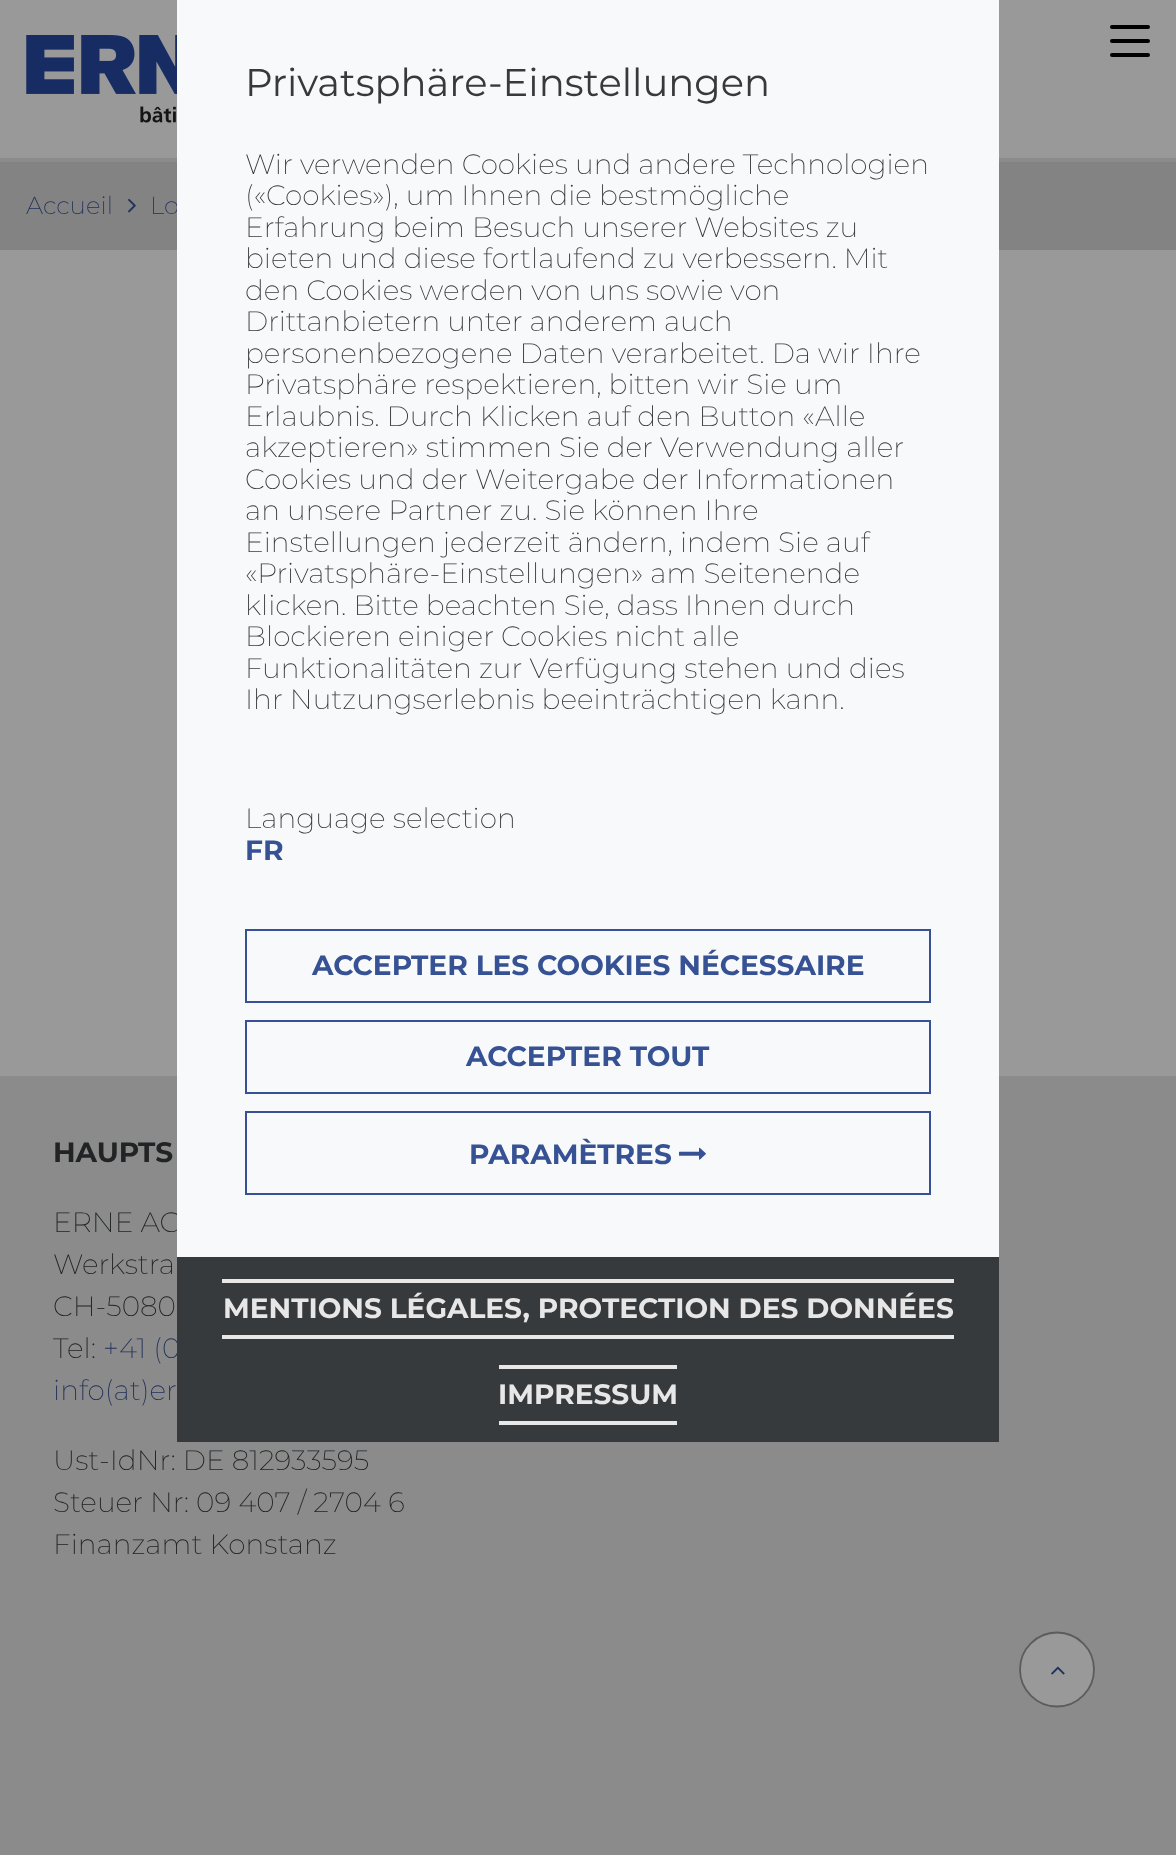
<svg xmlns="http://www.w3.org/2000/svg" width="1176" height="1855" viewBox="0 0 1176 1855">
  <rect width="100%" height="100%" fill="#999"/>
  <path d="M0 158h1176v4H0z" fill="#8b8b8b"/>
  <image x="26" y="35" width="151" height="88" href="img/1.png"/>
  <rect x="1110" y="39" width="40" height="4" rx="2" fill="#000"/>
  <rect x="1110" y="25" width="40" height="4" rx="2" fill="#000"/>
  <rect x="1110" y="53" width="40" height="4" rx="2" fill="#000"/>
  <path d="M0 162h1176v88H0z" fill="#838383"/>
  <image x="128" y="198" width="8" height="15" href="img/2.png"/>
  <path d="M0 1076h1176v779H0z" fill="#8b8b8b"/>
  <circle cx="1057" cy="1669.5" r="37" fill="#999" stroke="#5c5c5c" stroke-width="1.8"/>
  <image x="1051" y="1666" width="14" height="9" href="img/3.png"/>
  <g font-family="Montserrat" font-size="24.5" font-weight="200" fill="#203159">
    <text x="26" y="214">Accueil</text>
    <text x="150" y="214">Lo</text>
  </g>
  <text x="53" y="1162" font-family="Montserrat" font-size="28" font-weight="bold" fill="#212324">HAUPTS</text>
  <g font-family="Montserrat" font-size="28" font-weight="200" fill="#212324">
    <text x="53" y="1232">ERNE AG</text>
    <text x="53" y="1274">Werkstra</text>
    <text x="53" y="1316">CH-5080</text>
    <text x="53" y="1358">Tel:</text>
  </g>
  <g font-family="Montserrat" font-size="28" font-weight="200" fill="#203159">
    <text x="103" y="1358">+41 (0</text>
    <text x="53" y="1400">info(at)er</text>
  </g>
  <g font-family="Montserrat" font-size="28" font-weight="200" fill="#212324">
    <text x="53" y="1470">Ust-IdNr: DE 812933595</text>
    <text x="53" y="1512">Steuer Nr: 09 407 / 2704 6</text>
    <text x="53" y="1554">Finanzamt Konstanz</text>
  </g>
  <path d="M177 0h822v1257H177z" fill="#f8f9fa"/>
  <text x="245" y="96" font-family="Montserrat" font-size="38.5" fill="#373a3c">Privatsphäre-Einstellungen</text>
  <g font-family="Montserrat" font-size="28" font-weight="200" fill="#373a3c">
    <text x="245" y="174">Wir verwenden Cookies und andere Technologien</text>
    <text x="245" y="205">(«Cookies»), um Ihnen die bestmögliche</text>
    <text x="245" y="237">Erfahrung beim Besuch unserer Websites zu</text>
    <text x="245" y="268">bieten und diese fortlaufend zu verbessern. Mit</text>
    <text x="245" y="300">den Cookies werden von uns sowie von</text>
    <text x="245" y="331">Drittanbietern unter anderem auch</text>
    <text x="245" y="363">personenbezogene Daten verarbeitet. Da wir Ihre</text>
    <text x="245" y="394">Privatsphäre respektieren, bitten wir Sie um</text>
    <text x="245" y="426">Erlaubnis. Durch Klicken auf den Button «Alle</text>
    <text x="245" y="457">akzeptieren» stimmen Sie der Verwendung aller</text>
    <text x="245" y="489">Cookies und der Weitergabe der Informationen</text>
    <text x="245" y="520">an unsere Partner zu. Sie können Ihre</text>
    <text x="245" y="552">Einstellungen jederzeit ändern, indem Sie auf</text>
    <text x="245" y="583">«Privatsphäre-Einstellungen» am Seitenende</text>
    <text x="245" y="615">klicken. Bitte beachten Sie, dass Ihnen durch</text>
    <text x="245" y="646">Blockieren einiger Cookies nicht alle</text>
    <text x="245" y="678">Funktionalitäten zur Verfügung stehen und dies</text>
    <text x="245" y="709">Ihr Nutzungserlebnis beeinträchtigen kann.</text>
    <text x="245" y="828">Language selection</text>
  </g>
  <text x="245" y="860" font-family="Montserrat" font-size="28" font-weight="bold" fill="#365294">FR</text>
  <path d="M246 930h684v72H246z" fill="none" stroke="#365294" stroke-width="2"/>
  <text x="312" y="975" font-family="Montserrat" font-size="28" font-weight="bold" fill="#365294">ACCEPTER LES COOKIES NÉCESSAIRE</text>
  <path d="M246 1021h684v72H246z" fill="none" stroke="#365294" stroke-width="2"/>
  <text x="466" y="1066" font-family="Montserrat" font-size="28" font-weight="bold" fill="#365294">ACCEPTER TOUT</text>
  <path d="M246 1112h684v82H246z" fill="none" stroke="#365294" stroke-width="2"/>
  <text x="469" y="1164" font-family="Montserrat" font-size="28" font-weight="bold" fill="#365294">PARAMÈTRES</text>
  <image x="679" y="1147" width="27" height="13" href="img/4.png"/>
  <path d="M177 1257h822v185H177z" fill="#373a3c"/>
  <path d="M222 1279h732v4H222z" fill="#e7e7e7"/>
  <path d="M222 1335h732v4H222z" fill="#e7e7e7"/>
  <text x="223" y="1318" font-family="Montserrat" font-size="28" font-weight="bold" fill="#e7e7e7">MENTIONS LÉGALES, PROTECTION DES DONNÉES</text>
  <path d="M499 1365h178v4H499z" fill="#e7e7e7"/>
  <path d="M499 1421h178v4H499z" fill="#e7e7e7"/>
  <text x="498" y="1404" font-family="Montserrat" font-size="28" font-weight="bold" fill="#e7e7e7">IMPRESSUM</text>
</svg>
